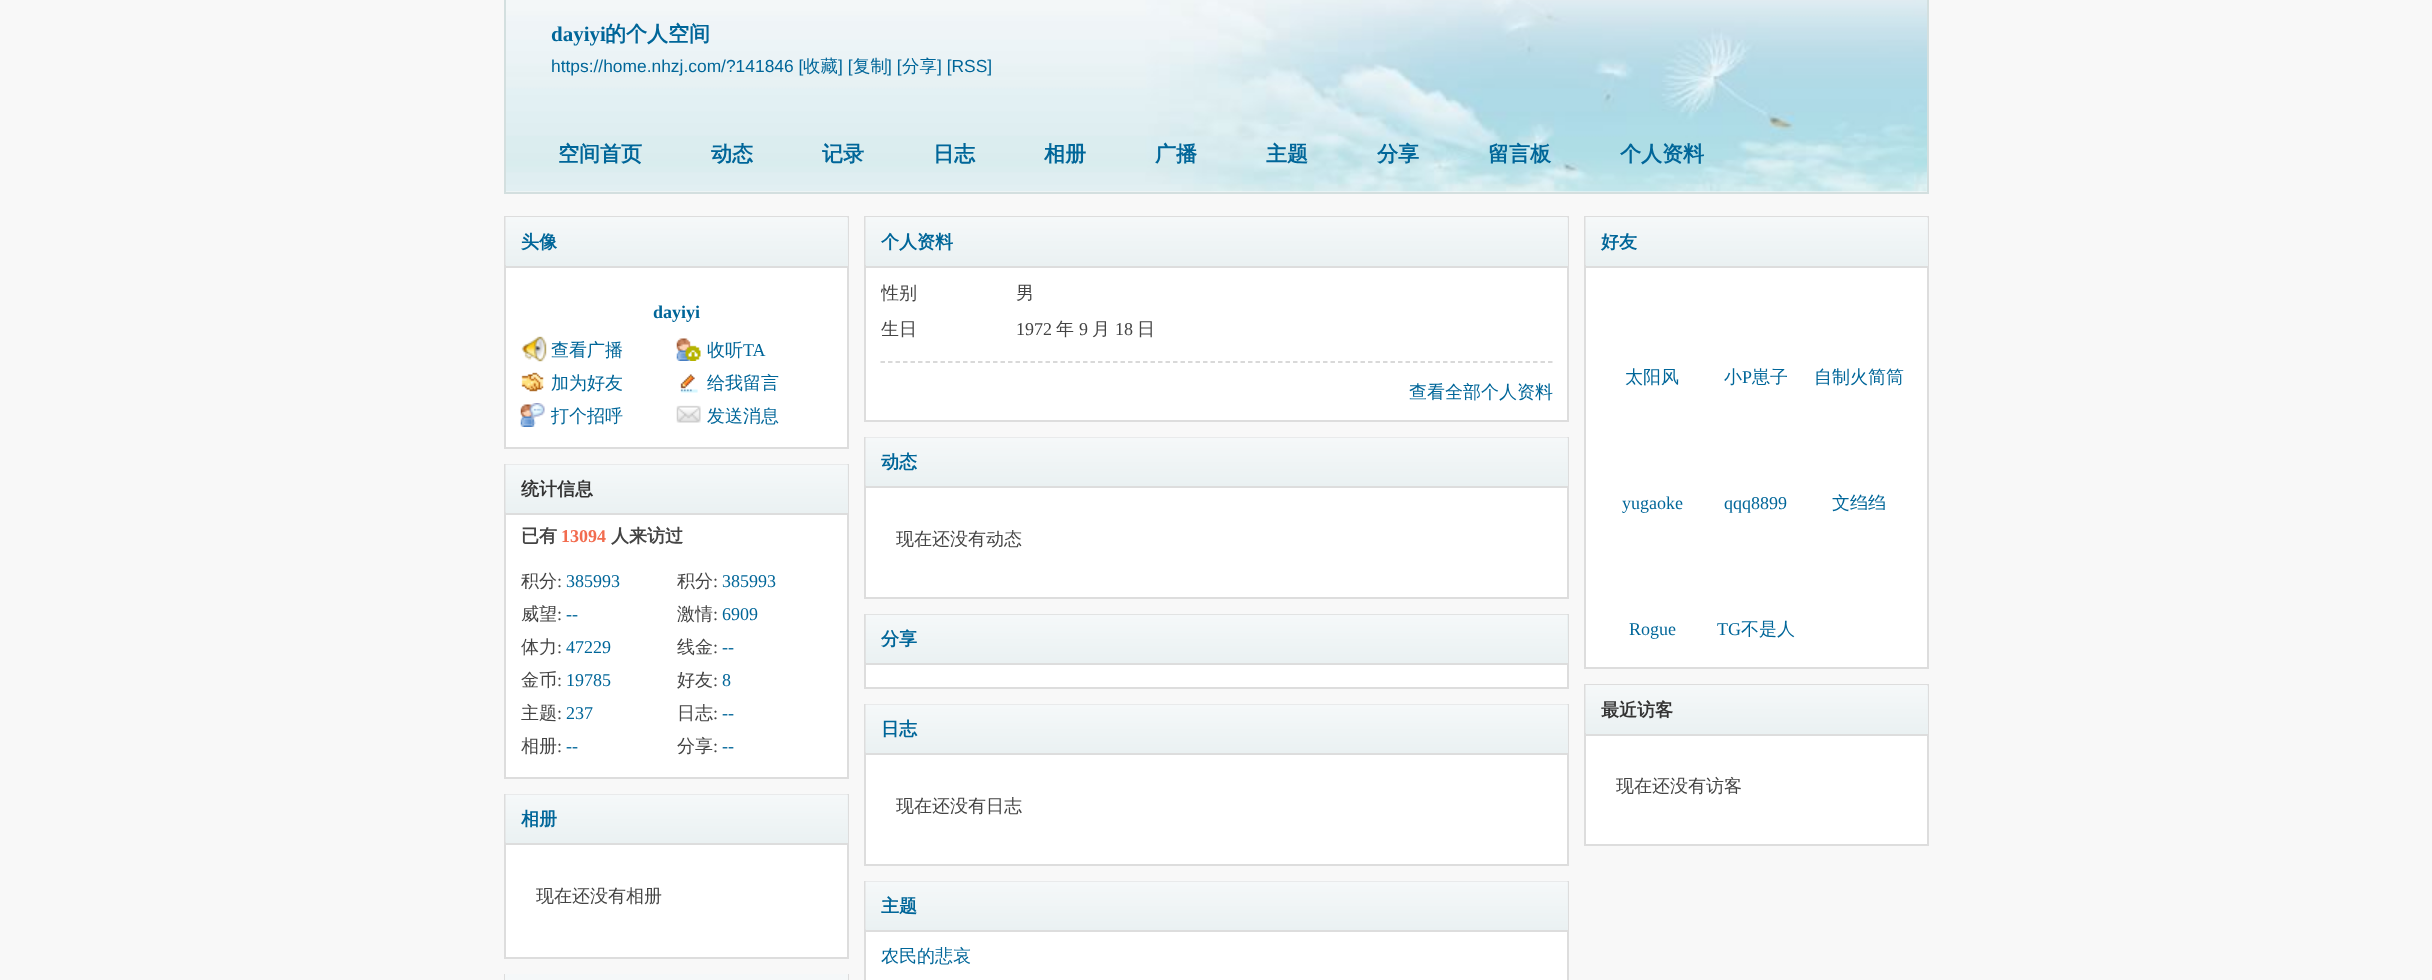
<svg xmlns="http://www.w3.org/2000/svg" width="2432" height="980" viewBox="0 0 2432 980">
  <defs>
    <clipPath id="clip1"><path d="M881 279h127v27H881z"/></clipPath>
  </defs>
  <rect width="100%" height="100%" fill="#f8f8f8"/>
  <image x="506" y="0" width="1421" height="192" href="img/1.png"/>
  <path d="M505 -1h1423v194H505z" fill="none" stroke="#d3dfdf" stroke-width="2"/>
  <path d="M506 268h341v179H506z" fill="#fff"/>
  <path d="M505 217h343v231H505z" fill="none" stroke="#ddd" stroke-width="2"/>
  <path d="M506 218h342v48H506z" fill="#eaf1f2"/>
  <image x="505" y="217" width="343" height="48" href="img/2.png"/>
  <path d="M506 266h342v2H506z" fill="#ddd"/>
  <image x="521" y="336" width="26" height="26" href="img/3.png"/>
  <image x="676" y="338" width="25" height="23" href="img/4.png"/>
  <image x="521" y="372" width="23" height="20" href="img/5.png"/>
  <image x="680" y="374" width="18" height="19" href="img/6.png"/>
  <image x="520" y="403" width="25" height="24" href="img/7.png"/>
  <image x="676" y="405" width="25" height="18" href="img/8.png"/>
  <path d="M506 515h341v262H506z" fill="#fff"/>
  <path d="M505 465h343v313H505z" fill="none" stroke="#ddd" stroke-width="2"/>
  <path d="M506 465h342v48H506z" fill="#eaf1f2"/>
  <image x="505" y="464" width="343" height="49" href="img/9.png"/>
  <path d="M506 513h342v2H506z" fill="#ddd"/>
  <path d="M506 845h341v112H506z" fill="#fff"/>
  <path d="M505 795h343v163H505z" fill="none" stroke="#ddd" stroke-width="2"/>
  <path d="M506 795h342v48H506z" fill="#eaf1f2"/>
  <image x="505" y="794" width="343" height="49" href="img/9.png"/>
  <path d="M506 843h342v2H506z" fill="#ddd"/>
  <path d="M505 975h343v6H505z" fill="none" stroke="#ddd" stroke-width="2"/>
  <path d="M505 974h343v6H505z" fill="#f5f8f9"/>
  <path d="M866 268h701v152H866z" fill="#fff"/>
  <path d="M865 217h703v204H865z" fill="none" stroke="#ddd" stroke-width="2"/>
  <path d="M866 218h702v48H866z" fill="#eaf1f2"/>
  <image x="865" y="217" width="703" height="48" href="img/10.png"/>
  <path d="M866 266h702v2H866z" fill="#ddd"/>
  <path d="M880.5 362H1552.5" fill="none" stroke="#cdcdcd" stroke-width="1.5" stroke-dasharray="4.5 3"/>
  <path d="M866 488h701v109H866z" fill="#fff"/>
  <path d="M865 438h703v160H865z" fill="none" stroke="#ddd" stroke-width="2"/>
  <path d="M866 438h702v48H866z" fill="#eaf1f2"/>
  <image x="865" y="437" width="703" height="49" href="img/11.png"/>
  <path d="M866 486h702v2H866z" fill="#ddd"/>
  <path d="M866 665h701v22H866z" fill="#fff"/>
  <path d="M865 615h703v73H865z" fill="none" stroke="#ddd" stroke-width="2"/>
  <path d="M866 615h702v48H866z" fill="#eaf1f2"/>
  <image x="865" y="614" width="702" height="48" href="img/12.png"/>
  <path d="M866 663h702v2H866z" fill="#ddd"/>
  <path d="M866 755h701v109H866z" fill="#fff"/>
  <path d="M865 705h703v160H865z" fill="none" stroke="#ddd" stroke-width="2"/>
  <path d="M866 705h702v48H866z" fill="#eaf1f2"/>
  <image x="865" y="704" width="703" height="49" href="img/11.png"/>
  <path d="M866 753h702v2H866z" fill="#ddd"/>
  <path d="M866 932h701v48H866z" fill="#fff"/>
  <path d="M865 882h703v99H865z" fill="none" stroke="#ddd" stroke-width="2"/>
  <path d="M866 882h702v48H866z" fill="#eaf1f2"/>
  <image x="865" y="881" width="703" height="49" href="img/13.png"/>
  <path d="M866 930h702v2H866z" fill="#ddd"/>
  <path d="M1586 268h341v399H1586z" fill="#fff"/>
  <path d="M1585 217h343v451H1585z" fill="none" stroke="#ddd" stroke-width="2"/>
  <path d="M1586 218h342v48H1586z" fill="#eaf1f2"/>
  <image x="1585" y="217" width="343" height="48" href="img/2.png"/>
  <path d="M1586 266h342v2H1586z" fill="#ddd"/>
  <path d="M1586 736h341v108H1586z" fill="#fff"/>
  <path d="M1585 685h343v160H1585z" fill="none" stroke="#ddd" stroke-width="2"/>
  <path d="M1586 686h342v48H1586z" fill="#eaf1f2"/>
  <image x="1585" y="685" width="343" height="48" href="img/2.png"/>
  <path d="M1586 734h342v2H1586z" fill="#ddd"/>
  <text x="551" y="41" font-family="Liberation Serif" font-size="21" font-weight="bold" fill="#069">dayiyi</text>
  <text x="605" y="41" font-family="WenQuanYi Zen Hei" font-size="21" font-weight="bold" fill="#069">的个人空间</text>
  <text x="551" y="72" font-family="Liberation Sans" font-size="17.4" fill="#069">https://home.nhzj.com/?141846 [</text>
  <text x="803" y="72" font-family="WenQuanYi Zen Hei" font-size="17.4" font-weight="500" fill="#069">收藏</text>
  <text x="838" y="72" font-family="Liberation Sans" font-size="17.4" fill="#069">] [</text>
  <text x="853" y="72" font-family="WenQuanYi Zen Hei" font-size="17.4" font-weight="500" fill="#069">复制</text>
  <text x="887" y="72" font-family="Liberation Sans" font-size="17.4" fill="#069">] [</text>
  <text x="902" y="72" font-family="WenQuanYi Zen Hei" font-size="17.4" font-weight="500" fill="#069">分享</text>
  <text x="937" y="72" font-family="Liberation Sans" font-size="17.4" fill="#069">] [RSS]</text>
  <g font-family="WenQuanYi Zen Hei" font-size="21" font-weight="bold" fill="#069">
    <text x="558" y="161">空间首页</text>
    <text x="711" y="161">动态</text>
    <text x="822" y="161">记录</text>
    <text x="933" y="161">日志</text>
    <text x="1044" y="161">相册</text>
    <text x="1155" y="161">广播</text>
    <text x="1266" y="161">主题</text>
    <text x="1377" y="161">分享</text>
    <text x="1488" y="161">留言板</text>
    <text x="1620" y="161">个人资料</text>
  </g>
  <text x="521" y="248" font-family="WenQuanYi Zen Hei" font-size="18" font-weight="bold" fill="#069">头像</text>
  <text x="653" y="318" font-family="Liberation Serif" font-size="18" font-weight="bold" fill="#069">dayiyi</text>
  <g font-family="WenQuanYi Zen Hei" font-size="18" font-weight="500" fill="#069">
    <text x="551" y="356">查看广播</text>
    <text x="707" y="356">收听</text>
  </g>
  <text x="743" y="356" font-family="Liberation Serif" font-size="18" fill="#069">TA</text>
  <g font-family="WenQuanYi Zen Hei" font-size="18" font-weight="500" fill="#069">
    <text x="551" y="389">加为好友</text>
    <text x="707" y="389">给我留言</text>
    <text x="551" y="422">打个招呼</text>
    <text x="707" y="422">发送消息</text>
  </g>
  <text x="521" y="495" font-family="WenQuanYi Zen Hei" font-size="18" font-weight="bold" fill="#333">统计信息</text>
  <text x="521" y="542" font-family="WenQuanYi Zen Hei" font-size="18" font-weight="bold" fill="#444">已有</text>
  <text x="561" y="542" font-family="Liberation Serif" font-size="18" font-weight="bold" fill="#f26c4f">13094</text>
  <text x="611" y="542" font-family="WenQuanYi Zen Hei" font-size="18" font-weight="bold" fill="#444">人来访过</text>
  <text x="521" y="587" font-family="WenQuanYi Zen Hei" font-size="18" font-weight="500" fill="#444">积分</text>
  <text x="557" y="587" font-family="Liberation Serif" font-size="18" fill="#444">:</text>
  <text x="566" y="587" font-family="Liberation Serif" font-size="18" fill="#069">385993</text>
  <text x="677" y="587" font-family="WenQuanYi Zen Hei" font-size="18" font-weight="500" fill="#444">积分</text>
  <text x="713" y="587" font-family="Liberation Serif" font-size="18" fill="#444">:</text>
  <text x="722" y="587" font-family="Liberation Serif" font-size="18" fill="#069">385993</text>
  <text x="521" y="620" font-family="WenQuanYi Zen Hei" font-size="18" font-weight="500" fill="#444">威望</text>
  <text x="557" y="620" font-family="Liberation Serif" font-size="18" fill="#444">:</text>
  <text x="566" y="620" font-family="Liberation Serif" font-size="18" fill="#069">--</text>
  <text x="677" y="620" font-family="WenQuanYi Zen Hei" font-size="18" font-weight="500" fill="#444">激情</text>
  <text x="713" y="620" font-family="Liberation Serif" font-size="18" fill="#444">:</text>
  <text x="722" y="620" font-family="Liberation Serif" font-size="18" fill="#069">6909</text>
  <text x="521" y="653" font-family="WenQuanYi Zen Hei" font-size="18" font-weight="500" fill="#444">体力</text>
  <text x="557" y="653" font-family="Liberation Serif" font-size="18" fill="#444">:</text>
  <text x="566" y="653" font-family="Liberation Serif" font-size="18" fill="#069">47229</text>
  <text x="677" y="653" font-family="WenQuanYi Zen Hei" font-size="18" font-weight="500" fill="#444">线金</text>
  <text x="713" y="653" font-family="Liberation Serif" font-size="18" fill="#444">:</text>
  <text x="722" y="653" font-family="Liberation Serif" font-size="18" fill="#069">--</text>
  <text x="521" y="686" font-family="WenQuanYi Zen Hei" font-size="18" font-weight="500" fill="#444">金币</text>
  <text x="557" y="686" font-family="Liberation Serif" font-size="18" fill="#444">:</text>
  <text x="566" y="686" font-family="Liberation Serif" font-size="18" fill="#069">19785</text>
  <text x="677" y="686" font-family="WenQuanYi Zen Hei" font-size="18" font-weight="500" fill="#444">好友</text>
  <text x="713" y="686" font-family="Liberation Serif" font-size="18" fill="#444">:</text>
  <text x="722" y="686" font-family="Liberation Serif" font-size="18" fill="#069">8</text>
  <text x="521" y="719" font-family="WenQuanYi Zen Hei" font-size="18" font-weight="500" fill="#444">主题</text>
  <text x="557" y="719" font-family="Liberation Serif" font-size="18" fill="#444">:</text>
  <text x="566" y="719" font-family="Liberation Serif" font-size="18" fill="#069">237</text>
  <text x="677" y="719" font-family="WenQuanYi Zen Hei" font-size="18" font-weight="500" fill="#444">日志</text>
  <text x="713" y="719" font-family="Liberation Serif" font-size="18" fill="#444">:</text>
  <text x="722" y="719" font-family="Liberation Serif" font-size="18" fill="#069">--</text>
  <text x="521" y="752" font-family="WenQuanYi Zen Hei" font-size="18" font-weight="500" fill="#444">相册</text>
  <text x="557" y="752" font-family="Liberation Serif" font-size="18" fill="#444">:</text>
  <text x="566" y="752" font-family="Liberation Serif" font-size="18" fill="#069">--</text>
  <text x="677" y="752" font-family="WenQuanYi Zen Hei" font-size="18" font-weight="500" fill="#444">分享</text>
  <text x="713" y="752" font-family="Liberation Serif" font-size="18" fill="#444">:</text>
  <text x="722" y="752" font-family="Liberation Serif" font-size="18" fill="#069">--</text>
  <text x="521" y="825" font-family="WenQuanYi Zen Hei" font-size="18" font-weight="bold" fill="#069">相册</text>
  <text x="536" y="902" font-family="WenQuanYi Zen Hei" font-size="18" font-weight="500" fill="#444">现在还没有相册</text>
  <text x="881" y="248" font-family="WenQuanYi Zen Hei" font-size="18" font-weight="bold" fill="#069">个人资料</text>
  <g clip-path="url(#clip1)">
    <text x="881" y="299" font-family="WenQuanYi Zen Hei" font-size="18" font-weight="500" fill="#444">性别</text>
  </g>
  <g font-family="WenQuanYi Zen Hei" font-size="18" font-weight="500" fill="#444">
    <text x="1016" y="299">男</text>
    <text x="881" y="335">生日</text>
  </g>
  <text x="1016" y="335" font-family="Liberation Serif" font-size="18" fill="#444">1972</text>
  <text x="1056" y="335" font-family="WenQuanYi Zen Hei" font-size="18" font-weight="500" fill="#444">年</text>
  <text x="1079" y="335" font-family="Liberation Serif" font-size="18" fill="#444">9</text>
  <text x="1092" y="335" font-family="WenQuanYi Zen Hei" font-size="18" font-weight="500" fill="#444">月</text>
  <text x="1115" y="335" font-family="Liberation Serif" font-size="18" fill="#444">18</text>
  <text x="1137" y="335" font-family="WenQuanYi Zen Hei" font-size="18" font-weight="500" fill="#444">日</text>
  <text x="1409" y="398" font-family="WenQuanYi Zen Hei" font-size="18" font-weight="500" fill="#069">查看全部个人资料</text>
  <text x="881" y="468" font-family="WenQuanYi Zen Hei" font-size="18" font-weight="bold" fill="#069">动态</text>
  <text x="896" y="545" font-family="WenQuanYi Zen Hei" font-size="18" font-weight="500" fill="#444">现在还没有动态</text>
  <g font-family="WenQuanYi Zen Hei" font-size="18" font-weight="bold" fill="#069">
    <text x="881" y="645">分享</text>
    <text x="881" y="735">日志</text>
  </g>
  <text x="896" y="812" font-family="WenQuanYi Zen Hei" font-size="18" font-weight="500" fill="#444">现在还没有日志</text>
  <text x="881" y="912" font-family="WenQuanYi Zen Hei" font-size="18" font-weight="bold" fill="#069">主题</text>
  <text x="881" y="962" font-family="WenQuanYi Zen Hei" font-size="18" font-weight="500" fill="#069">农民的悲哀</text>
  <text x="1601" y="248" font-family="WenQuanYi Zen Hei" font-size="18" font-weight="bold" fill="#069">好友</text>
  <g font-family="WenQuanYi Zen Hei" font-size="18" font-weight="500" fill="#069">
    <text x="1625" y="383">太阳风</text>
    <text x="1724" y="383">小</text>
  </g>
  <text x="1742" y="383" font-family="Liberation Serif" font-size="18" fill="#069">P</text>
  <g font-family="WenQuanYi Zen Hei" font-size="18" font-weight="500" fill="#069">
    <text x="1752" y="383">崽子</text>
    <text x="1814" y="383">自制火简筒</text>
  </g>
  <g font-family="Liberation Serif" font-size="18" fill="#069">
    <text x="1622" y="509">yugaoke</text>
    <text x="1724" y="509">qqq8899</text>
  </g>
  <text x="1832" y="509" font-family="WenQuanYi Zen Hei" font-size="18" font-weight="500" fill="#069">文绉绉</text>
  <g font-family="Liberation Serif" font-size="18" fill="#069">
    <text x="1629" y="635">Rogue</text>
    <text x="1717" y="635">TG</text>
  </g>
  <text x="1741" y="635" font-family="WenQuanYi Zen Hei" font-size="18" font-weight="500" fill="#069">不是人</text>
  <text x="1601" y="716" font-family="WenQuanYi Zen Hei" font-size="18" font-weight="bold" fill="#333">最近访客</text>
  <text x="1616" y="792" font-family="WenQuanYi Zen Hei" font-size="18" font-weight="500" fill="#444">现在还没有访客</text>
</svg>
